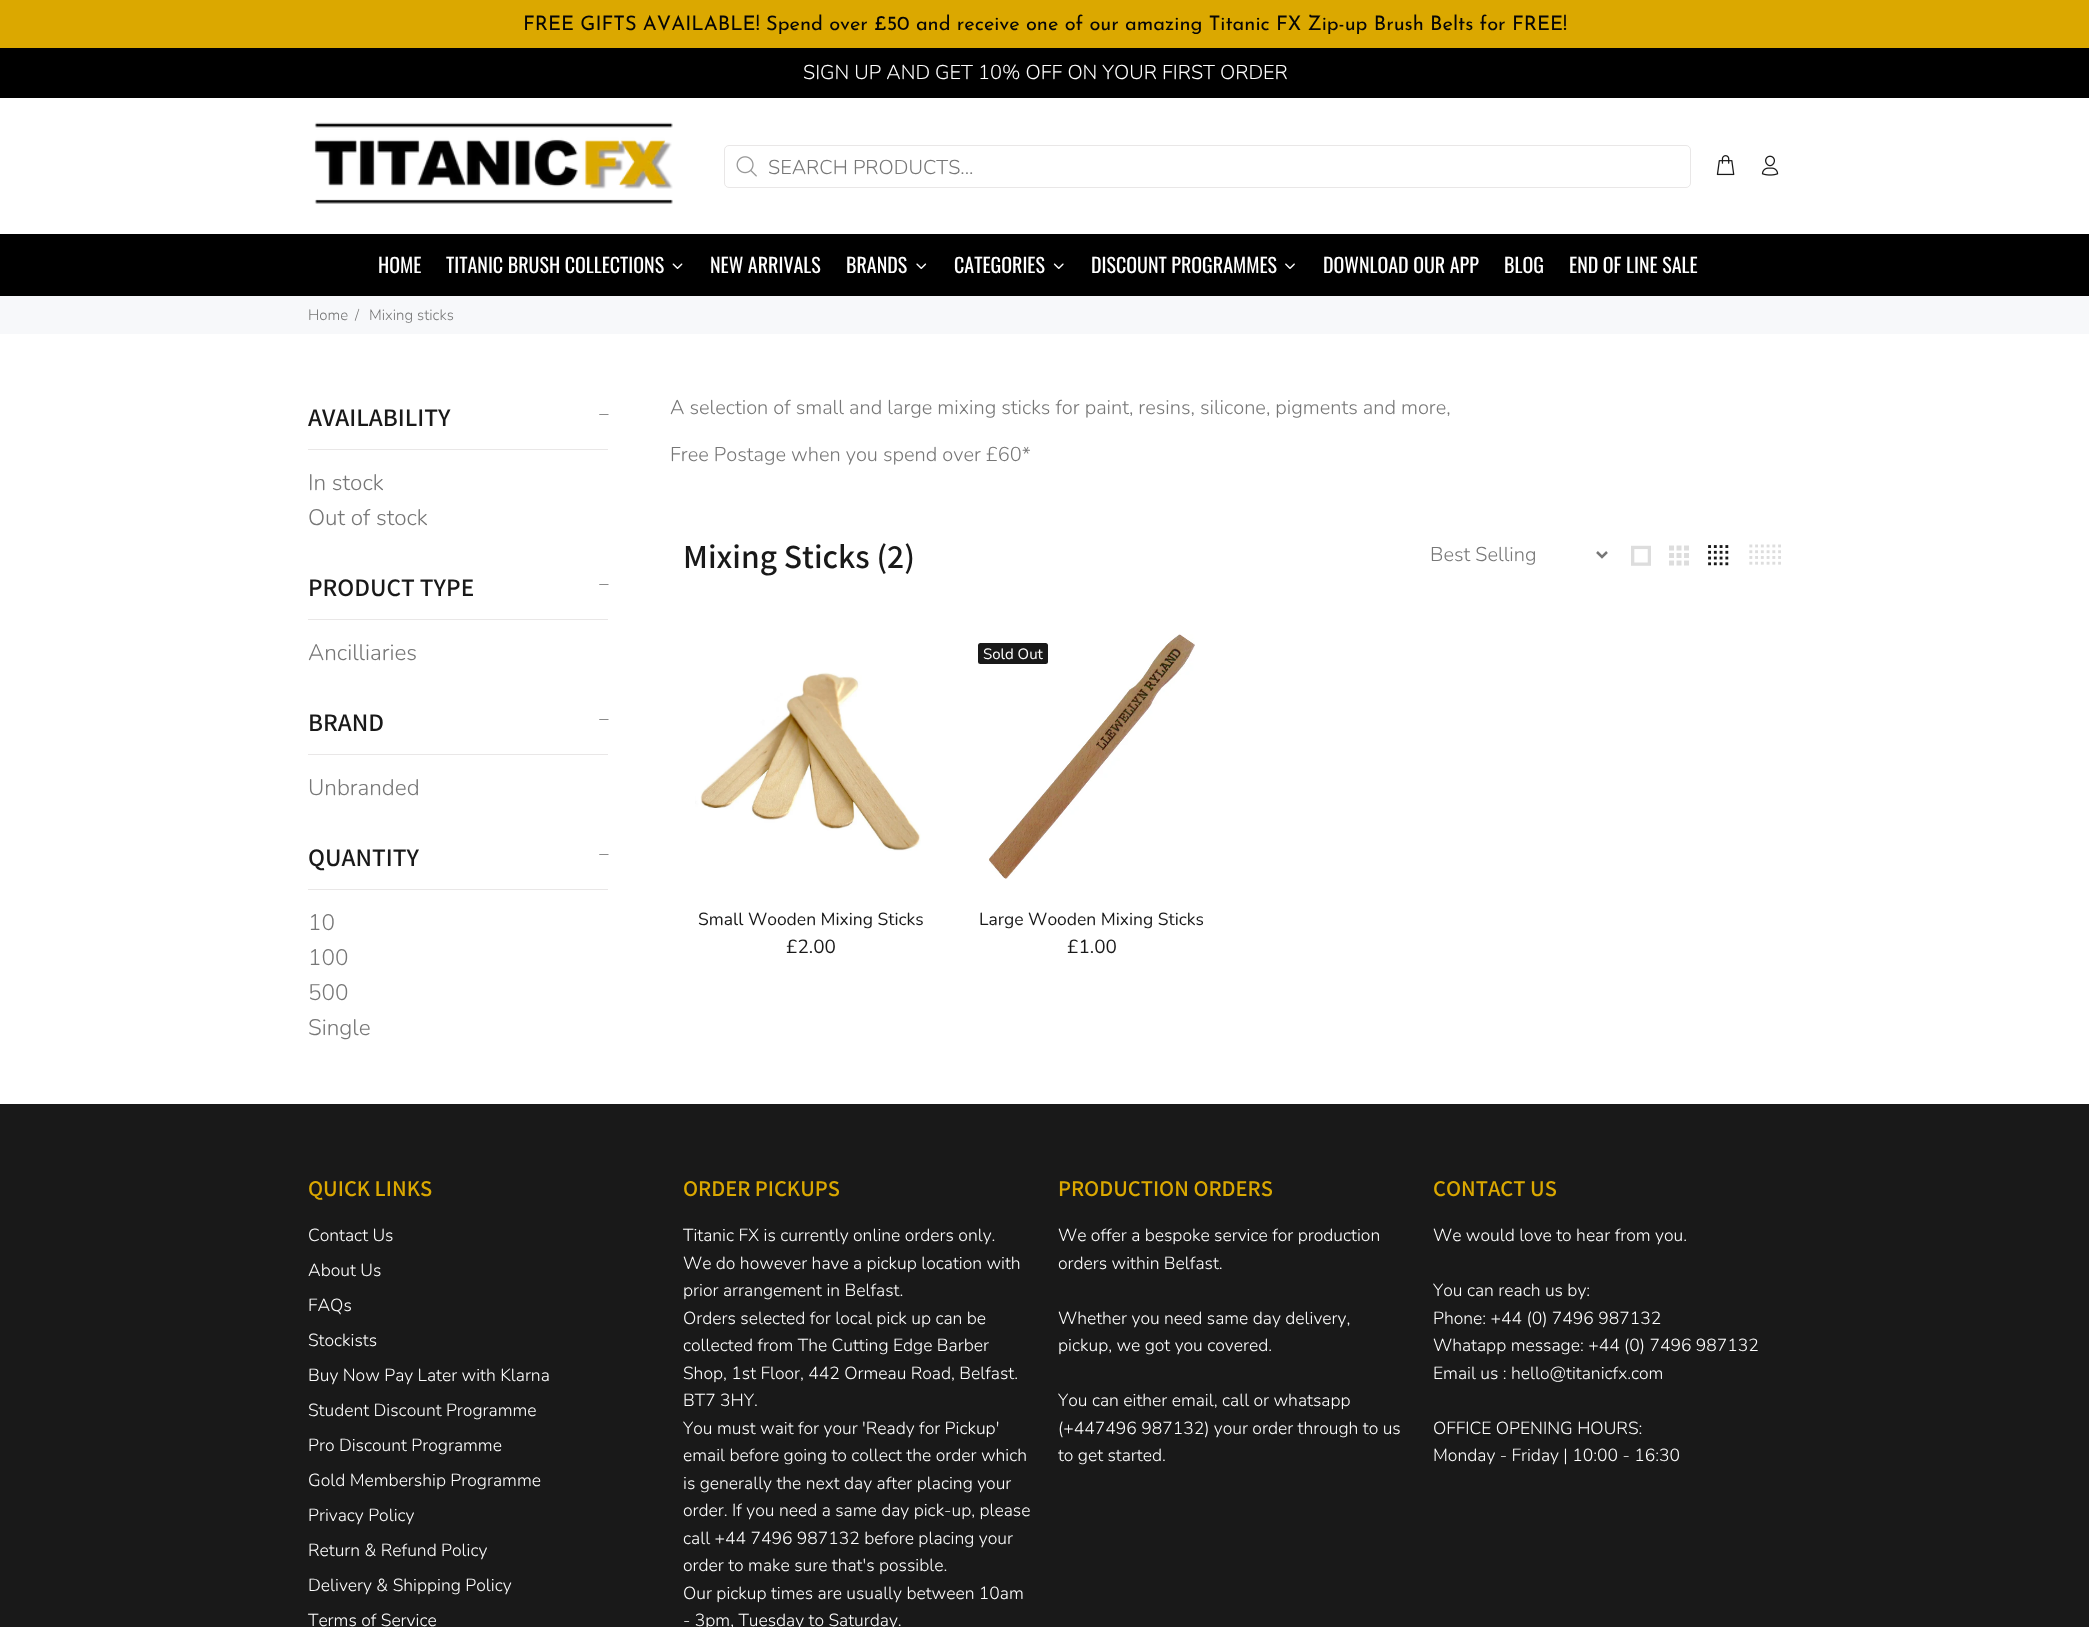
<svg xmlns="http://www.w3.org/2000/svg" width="2089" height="1627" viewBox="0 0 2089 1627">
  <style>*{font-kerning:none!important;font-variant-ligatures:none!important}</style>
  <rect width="100%" height="100%" fill="#fff"/>
  <path d="M0 0h2089v48H0z" fill="#dba800"/>
  <path d="M0 48h2089v50H0z" fill="#000"/>
  <image x="314" y="122" width="359" height="82" href="img/1.png"/>
  <rect x="724.5" y="145.5" width="966" height="42" rx="4.5" fill="none" stroke="#e9e7e7"/>
  <image x="736" y="156" width="21" height="21" href="img/2.png"/>
  <image x="1716" y="155" width="19" height="21" href="img/3.png"/>
  <image x="1761" y="155" width="18" height="21" href="img/4.png"/>
  <path d="M0 234h2089v62H0z" fill="#000"/>
  <image x="672" y="263" width="11" height="6" href="img/5.png"/>
  <image x="916" y="263" width="11" height="6" href="img/6.png"/>
  <image x="1053" y="263" width="11" height="6" href="img/7.png"/>
  <image x="1285" y="263" width="10" height="6" href="img/8.png"/>
  <path d="M0 296h2089v38H0z" fill="#f7f8fa"/>
  <path d="M308 449h300v1H308z" fill="#e9e7e7"/>
  <path d="M608.5 414.5V415H599L599.5 414.5Z" fill="#191919"/>
  <path d="M308 619h300v1H308z" fill="#e9e7e7"/>
  <path d="M608.5 584.5V585H599L599.5 584.5Z" fill="#191919"/>
  <path d="M308 754h300v1H308z" fill="#e9e7e7"/>
  <path d="M608.5 719.5V720H599L599.5 719.5Z" fill="#191919"/>
  <path d="M308 889h300v1H308z" fill="#e9e7e7"/>
  <path d="M608.5 854.5V855H599L599.5 854.5Z" fill="#191919"/>
  <path d="M1597 552L1602 557L1607 552" fill="none" stroke="#777" stroke-width="2.5"/>
  <image x="1631" y="545" width="20" height="21" href="img/9.png"/>
  <image x="1669" y="545" width="20" height="21" href="img/10.png"/>
  <image x="1708" y="545" width="21" height="21" href="img/11.png"/>
  <image x="1749" y="544" width="32" height="21" href="img/12.png"/>
  <image x="695" y="672" width="226" height="179" href="img/13.png"/>
  <image x="988" y="634" width="207" height="245" href="img/14.png"/>
  <rect x="978" y="643" width="70" height="21" rx="2.5" fill="#191919"/>
  <path d="M0 1104h2089v523H0z" fill="#191919"/>
  <text x="523" y="30" font-family="Josefin Sans" font-size="20" font-weight="100" fill="#060606">FREE GIFTS AVAILABLE! Spend over</text>
  <text x="874" y="30" font-family="Josefin Sans" font-size="20" font-weight="100" fill="#060606">£50 and receive one of our amazing Titanic FX Zip-up Brush Belts for FREE!</text>
  <text x="803" y="79" font-family="Nunito" font-size="20" font-weight="300" fill="#fff">SIGN UP AND GET 10% OFF ON YOUR FIRST ORDER</text>
  <text x="768" y="174" font-family="Nunito" font-size="20" font-weight="300" fill="#777">SEARCH PRODUCTS...</text>
  <g font-family="Oswald" font-size="20" fill="#fff">
    <text x="378" y="273">HOME</text>
    <text x="446" y="273">TITANIC BRUSH COLLECTIONS</text>
    <text x="710" y="273">NEW ARRIVALS</text>
    <text x="846" y="273">BRANDS</text>
    <text x="954" y="273">CATEGORIES</text>
    <text x="1091" y="273">DISCOUNT PROGRAMMES</text>
    <text x="1323" y="273">DOWNLOAD OUR APP</text>
    <text x="1504" y="273">BLOG</text>
    <text x="1569" y="273">END OF LINE SALE</text>
  </g>
  <g font-family="Nunito" font-size="15" font-weight="300" fill="#777">
    <text x="308" y="320">Home</text>
    <text x="355" y="320">/</text>
    <text x="369" y="320">Mixing sticks</text>
  </g>
  <text x="308" y="426" font-family="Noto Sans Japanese" font-size="22.5" font-weight="500" fill="#191919">AVAILABILITY</text>
  <g font-family="Nunito" font-size="22.5" font-weight="300" fill="#777">
    <text x="308" y="490">In stock</text>
    <text x="308" y="525">Out of stock</text>
  </g>
  <text x="308" y="596" font-family="Noto Sans Japanese" font-size="22.5" font-weight="500" fill="#191919">PRODUCT TYPE</text>
  <text x="308" y="660" font-family="Nunito" font-size="22.5" font-weight="300" fill="#777">Ancilliaries</text>
  <text x="308" y="731" font-family="Noto Sans Japanese" font-size="22.5" font-weight="500" fill="#191919">BRAND</text>
  <text x="308" y="795" font-family="Nunito" font-size="22.5" font-weight="300" fill="#777">Unbranded</text>
  <text x="308" y="866" font-family="Noto Sans Japanese" font-size="22.5" font-weight="500" fill="#191919">QUANTITY</text>
  <g font-family="Nunito" font-size="22.5" font-weight="300" fill="#777">
    <text x="308" y="930">10</text>
    <text x="308" y="965">100</text>
    <text x="308" y="1000">500</text>
    <text x="308" y="1035">Single</text>
  </g>
  <g font-family="Nunito" font-size="20" font-weight="300" fill="#777">
    <text x="670" y="414">A selection of small and large mixing sticks for paint, resins, silicone, pigments and more,</text>
    <text x="670" y="461">Free Postage when you spend over £60*</text>
  </g>
  <text x="683" y="568" font-family="Noto Sans Japanese" font-size="30" font-weight="500" fill="#191919">Mixing Sticks (2)</text>
  <text x="1430" y="561" font-family="Nunito" font-size="20" font-weight="300" fill="#777">Best Selling</text>
  <text x="698" y="925" font-family="Nunito" font-size="17.5" fill="#191919">Small Wooden Mixing Sticks</text>
  <text x="786" y="953" font-family="Nunito" font-size="19" fill="#191919">£2.00</text>
  <text x="983" y="659" font-family="Nunito" font-size="15" fill="#fff">Sold Out</text>
  <text x="979" y="925" font-family="Nunito" font-size="17.5" fill="#191919">Large Wooden Mixing Sticks</text>
  <text x="1067" y="953" font-family="Nunito" font-size="19" fill="#191919">£1.00</text>
  <text x="308" y="1196" font-family="Noto Sans Japanese" font-size="20" font-weight="500" fill="#dba800">QUICK LINKS</text>
  <g font-family="Nunito" font-size="17.5" font-weight="300" fill="#fff">
    <text x="308" y="1241">Contact Us</text>
    <text x="308" y="1276">About Us</text>
    <text x="308" y="1311">FAQs</text>
    <text x="308" y="1346">Stockists</text>
    <text x="308" y="1381">Buy Now Pay Later with Klarna</text>
    <text x="308" y="1416">Student Discount Programme</text>
    <text x="308" y="1451">Pro Discount Programme</text>
    <text x="308" y="1486">Gold Membership Programme</text>
    <text x="308" y="1521">Privacy Policy</text>
    <text x="308" y="1556">Return &amp; Refund Policy</text>
    <text x="308" y="1591">Delivery &amp; Shipping Policy</text>
    <text x="308" y="1626">Terms of Service</text>
  </g>
  <text x="683" y="1196" font-family="Noto Sans Japanese" font-size="20" font-weight="500" fill="#dba800">ORDER PICKUPS</text>
  <g font-family="Nunito" font-size="17.5" font-weight="300" fill="#fff">
    <text x="683" y="1241">Titanic FX is currently online orders only.</text>
    <text x="683" y="1269">We do however have a pickup location with</text>
    <text x="683" y="1296">prior arrangement in Belfast.</text>
    <text x="683" y="1324">Orders selected for local pick up can be</text>
    <text x="683" y="1351">collected from The Cutting Edge Barber</text>
    <text x="683" y="1379">Shop, 1st Floor, 442 Ormeau Road, Belfast.</text>
    <text x="683" y="1406">BT7 3HY.</text>
    <text x="683" y="1434">You must wait for your 'Ready for Pickup'</text>
    <text x="683" y="1461">email before going to collect the order which</text>
    <text x="683" y="1489">is generally the next day after placing your</text>
    <text x="683" y="1516">order. If you need a same day pick-up, please</text>
    <text x="683" y="1544">call +44 7496 987132 before placing your</text>
    <text x="683" y="1571">order to make sure that's possible.</text>
    <text x="683" y="1599">Our pickup times are usually between 10am</text>
    <text x="683" y="1626">- 3pm, Tuesday to Saturday.</text>
  </g>
  <text x="1058" y="1196" font-family="Noto Sans Japanese" font-size="20" font-weight="500" fill="#dba800">PRODUCTION ORDERS</text>
  <g font-family="Nunito" font-size="17.5" font-weight="300" fill="#fff">
    <text x="1058" y="1241">We offer a bespoke service for production</text>
    <text x="1058" y="1269">orders within Belfast.</text>
    <text x="1058" y="1324">Whether you need same day delivery,</text>
    <text x="1058" y="1351">pickup, we got you covered.</text>
    <text x="1058" y="1406">You can either email, call or whatsapp</text>
    <text x="1058" y="1434">(+447496 987132) your order through to us</text>
    <text x="1058" y="1461">to get started.</text>
  </g>
  <text x="1433" y="1196" font-family="Noto Sans Japanese" font-size="20" font-weight="500" fill="#dba800">CONTACT US</text>
  <g font-family="Nunito" font-size="17.5" font-weight="300" fill="#fff">
    <text x="1433" y="1241">We would love to hear from you.</text>
    <text x="1433" y="1296">You can reach us by:</text>
    <text x="1433" y="1324">Phone: +44 (0) 7496 987132</text>
    <text x="1433" y="1351">Whatapp message: +44 (0) 7496 987132</text>
    <text x="1433" y="1379">Email us : hello@titanicfx.com</text>
    <text x="1433" y="1434">OFFICE OPENING HOURS:</text>
    <text x="1433" y="1461">Monday - Friday | 10:00 - 16:30</text>
  </g>
</svg>
